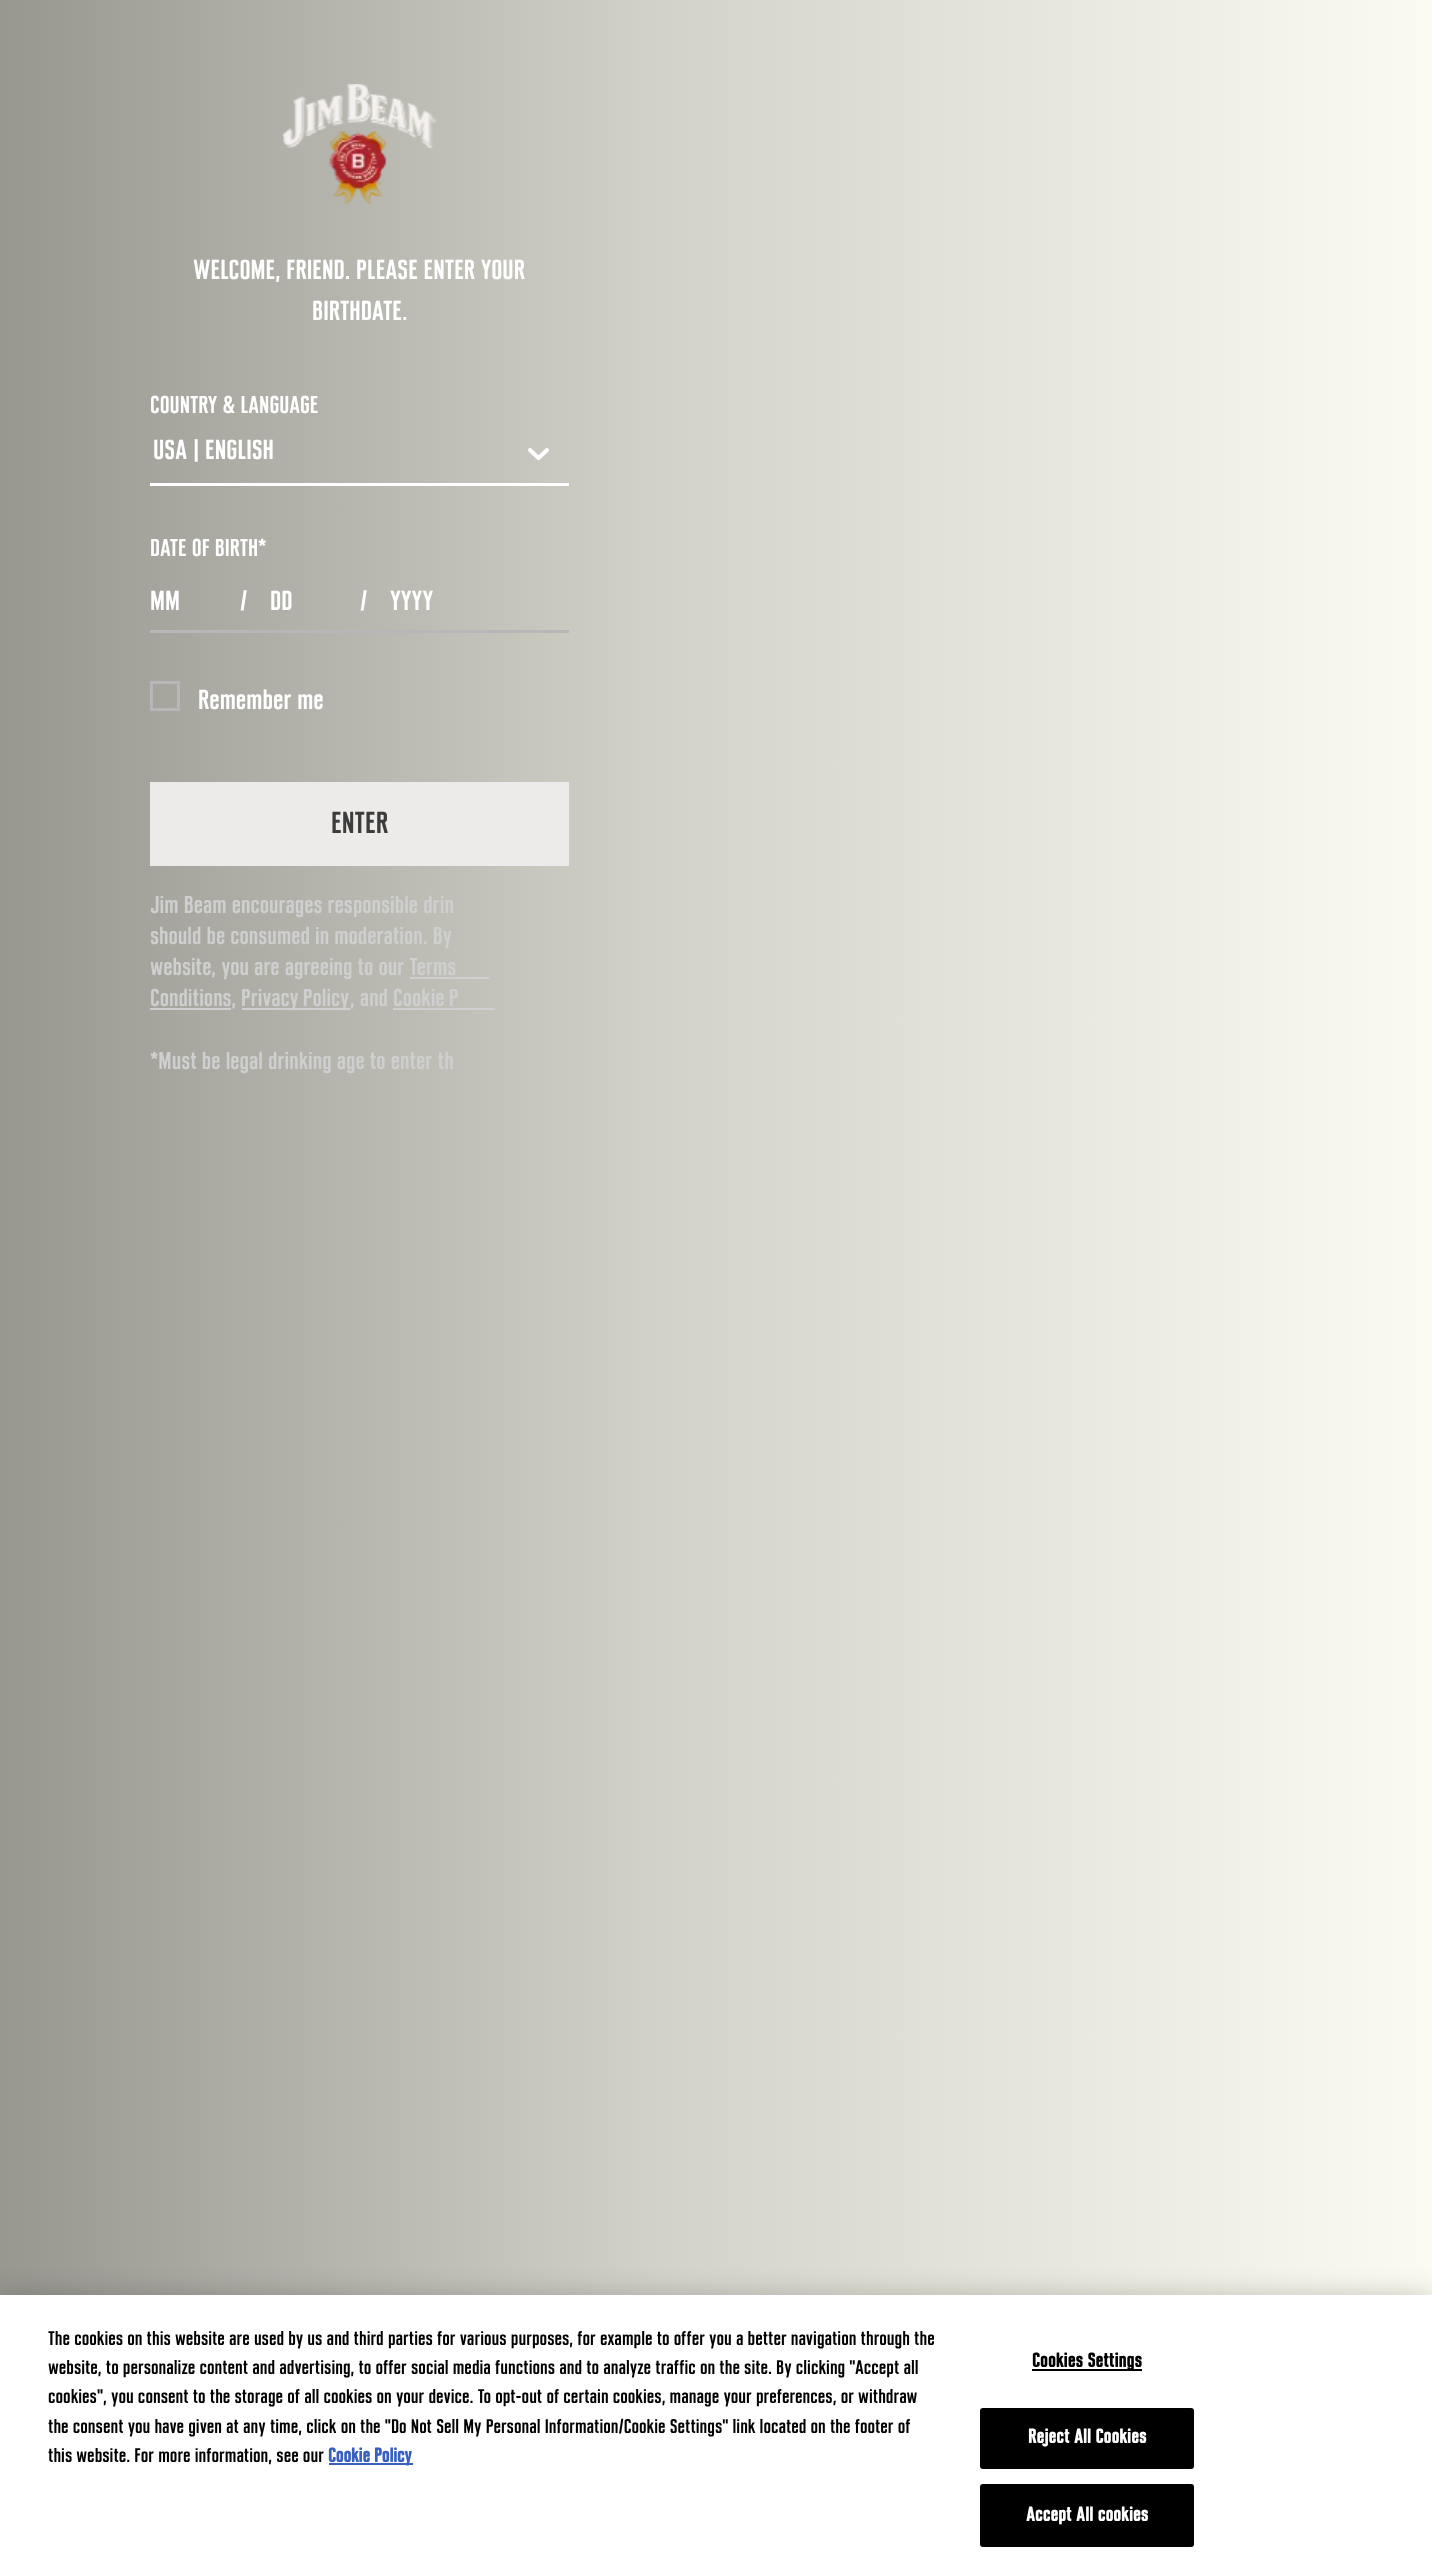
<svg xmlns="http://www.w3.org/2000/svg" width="1432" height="2576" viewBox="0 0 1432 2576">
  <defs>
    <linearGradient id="g1" gradientUnits="userSpaceOnUse" x1="0" y1="1289" x2="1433" y2="1289"><stop offset="0" stop-color="#979790"/><stop offset="0.47" stop-color="#d4d3ca"/><stop offset="1" stop-color="#fcfbf1"/></linearGradient>
  </defs>
  <rect width="100%" height="100%" fill="#fff"/>
  <path d="M0 0h1432v2295H0z" fill="url(#g1)"/>
  <image x="282" y="84" width="155" height="120" href="img/1.png"/>
  <path d="M150 483h419v3H150z" fill="#fff"/>
  <image x="528" y="448" width="21" height="13" href="img/2.png"/>
  <path d="M150 630h419v3H150z" fill="#b7b7b7"/>
  <path d="M151.5 682.5h27v27H151.5z" fill="none" stroke="#b7b7b7" stroke-width="3"/>
  <path d="M150 782h419v84H150z" fill="#edebe9"/>
  <path d="M410 977h79v2H410z" fill="#cfcfcf"/>
  <path d="M150 1008h81v2H150z" fill="#cfcfcf"/>
  <path d="M242 1008h108v2H242z" fill="#cfcfcf"/>
  <path d="M393 1008h102v2H393z" fill="#cfcfcf"/>
  <path d="M0 2295h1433v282H0z" fill="#00000033" filter="blur(13.5px)"/>
  <path d="M0 2295h1432v281H0z" fill="#fff"/>
  <path d="M329 2463h84v2H329z" fill="#3860be"/>
  <path d="M1032 2369h110v2H1032z" fill="#000"/>
  <rect x="981" y="2409" width="212" height="59" rx="2" fill="#000" stroke="#000" stroke-width="2"/>
  <rect x="981" y="2485" width="212" height="61" rx="2" fill="#000" stroke="#000" stroke-width="2"/>
  <g font-family="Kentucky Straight" font-size="27" fill="#fff">
    <text x="193" y="279">WELCOME, FRIEND. PLEASE ENTER YOUR</text>
    <text x="312" y="320">BIRTHDATE.</text>
  </g>
  <text x="150" y="413" font-family="Kentucky Straight" font-size="24" fill="#fff">COUNTRY &amp; LANGUAGE</text>
  <text x="153" y="459" font-family="Kentucky Straight" font-size="27" fill="#fff">USA | ENGLISH</text>
  <text x="150" y="556" font-family="Kentucky Straight" font-size="24" fill="#fff">DATE OF BIRTH*</text>
  <g font-family="Kentucky Straight" font-size="27" fill="#fff">
    <text x="150" y="610">MM</text>
    <text x="240" y="610">/</text>
    <text x="270" y="610">DD</text>
    <text x="360" y="610">/</text>
    <text x="390" y="610">YYYY</text>
    <text x="198" y="709">Remember me</text>
  </g>
  <text x="331" y="833" font-family="Kentucky Straight" font-size="30" fill="#3c3c3c">ENTER</text>
  <g font-family="Kentucky Straight" font-size="24" fill="#cfcfcf">
    <text x="150" y="913">Jim Beam encourages responsible drin</text>
    <text x="150" y="944">should be consumed in moderation. By</text>
    <text x="150" y="975">website, you are agreeing to our Terms</text>
    <text x="150" y="1006">Conditions,</text>
    <text x="241" y="1006" word-spacing="-1">Privacy Policy</text>
    <text x="350" y="1006">, and</text>
    <text x="393" y="1006" word-spacing="-1">Cookie P</text>
    <text x="150" y="1069">*Must be legal drinking age to enter th</text>
  </g>
  <g font-family="Kentucky Straight" font-size="19.5" fill="#000">
    <text x="48" y="2345">The cookies on this website are used by us and third parties for various purposes, for example to offer you a better navigation through the</text>
    <text x="48" y="2374">website, to personalize content and advertising, to offer social media functions and to analyze traffic on the site. By clicking "Accept all</text>
    <text x="48" y="2403">cookies", you consent to the storage of all cookies on your device. To opt-out of certain cookies, manage your preferences, or withdraw</text>
    <text x="48" y="2433">the consent you have given at any time, click on the "Do Not Sell My Personal Information/Cookie Settings" link located on the footer of</text>
    <text x="48" y="2462">this website. For more information, see our</text>
  </g>
  <text x="328" y="2462" font-family="Kentucky Straight" font-size="19.5" font-weight="bold" fill="#3860be">Cookie Policy</text>
  <text x="1032" y="2367" font-family="Kentucky Straight" font-size="19.5" font-weight="bold" letter-spacing="0.25" fill="#000">Cookies Settings</text>
  <g font-family="Kentucky Straight" font-size="19.5" font-weight="bold" letter-spacing="0.25" fill="#fff">
    <text x="1028" y="2443">Reject All Cookies</text>
    <text x="1026" y="2521">Accept All cookies</text>
  </g>
</svg>
